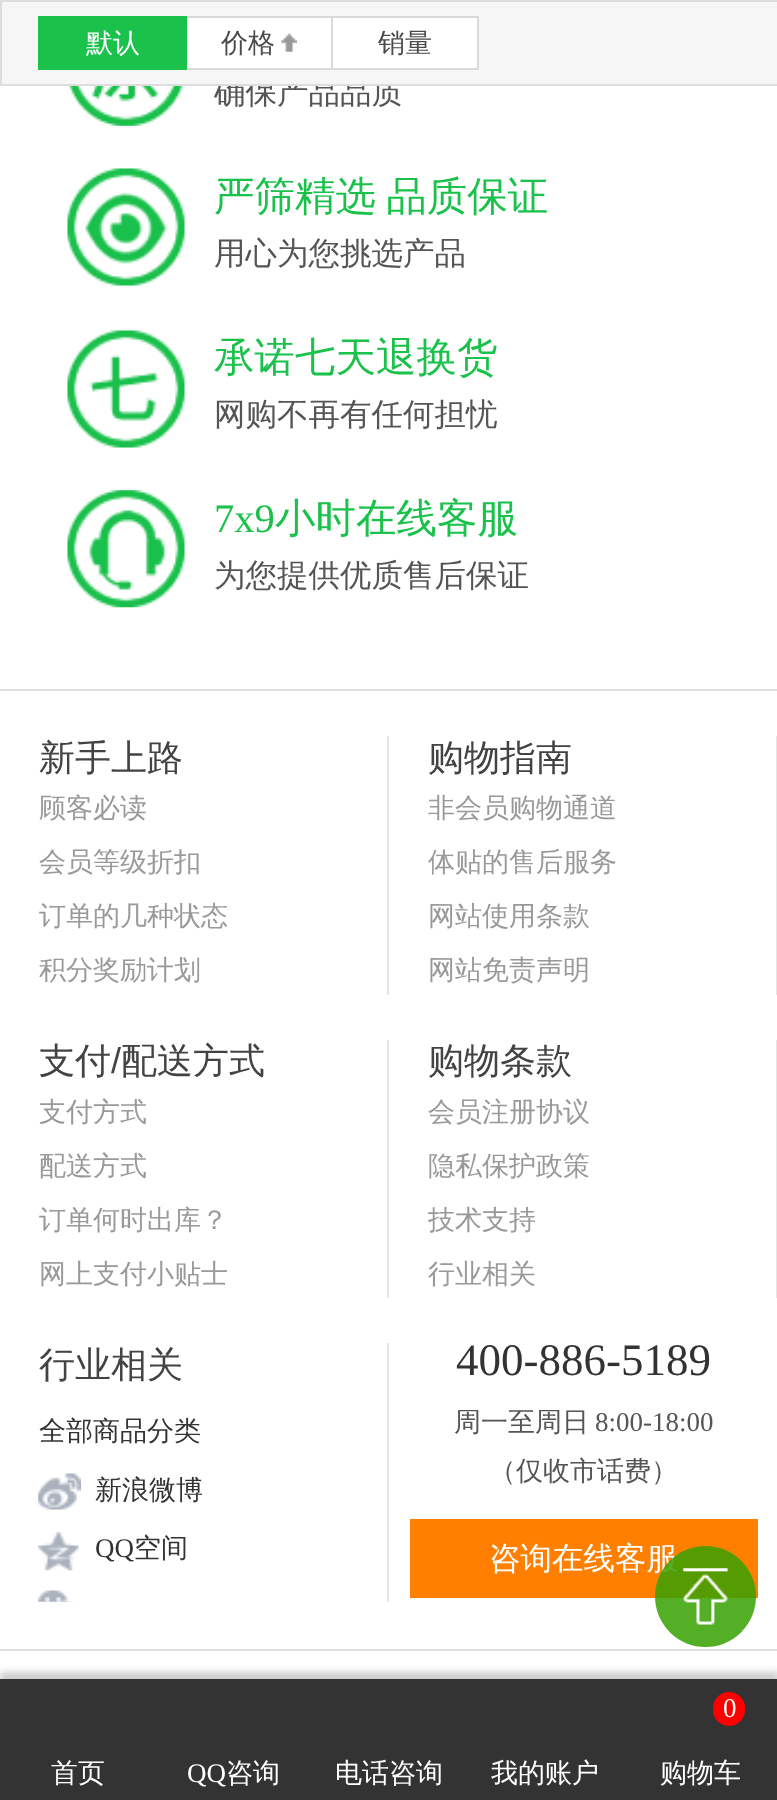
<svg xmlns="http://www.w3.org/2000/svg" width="777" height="1800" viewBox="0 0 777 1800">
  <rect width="100%" height="100%" fill="#fff"/>
  <image x="67" y="86" width="118" height="40" href="img/2.png"/>
  <image x="67" y="168" width="118" height="118" href="img/3.png"/>
  <image x="67" y="330" width="118" height="118" href="img/4.png"/>
  <image x="67" y="490" width="118" height="118" href="img/5.png"/>
  <path d="M0 689h777v2H0z" fill="#dfdfdf"/>
  <path d="M0 1649h777v2H0z" fill="#dfdfdf"/>
  <path d="M387 736h2v259H387z" fill="#e5e5e5"/>
  <path d="M776 736h1v259H776z" fill="#e5e5e5"/>
  <path d="M387 1040h2v258H387z" fill="#e5e5e5"/>
  <path d="M776 1040h1v258H776z" fill="#e5e5e5"/>
  <path d="M387 1343h2v259H387z" fill="#e5e5e5"/>
  <image x="38" y="1473" width="43" height="37" href="img/6.png"/>
  <image x="38" y="1532" width="41" height="39" href="img/7.png"/>
  <image x="38" y="1590" width="36" height="12" href="img/8.png"/>
  <path d="M410 1519h348v79H410z" fill="#ff7f00"/>
  <path d="M0 1672h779v121H0z" fill="#00000033" filter="blur(3.5px)"/>
  <path d="M0 1679h777v121H0z" fill="#333"/>
  <rect x="713" y="1692" width="32" height="34" rx="16" fill="#f00"/>
  <text x="214" y="103" font-family="WenQuanYi Zen Hei" font-size="31.5" font-weight="500" fill="#555">确保产品品质</text>
  <path d="M1 1h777v84H1z" fill="#f6f6f6" stroke="#ddd" stroke-width="2"/>
  <path d="M186 17h146v52H186z" fill="#fff" stroke="#d9d9d9" stroke-width="2"/>
  <path d="M38 16h149v54H38z" fill="#1ac14b"/>
  <text x="86" y="52" font-family="WenQuanYi Zen Hei" font-size="27" font-weight="500" fill="#fff">默认</text>
  <path d="M332 17h146v52H332z" fill="#fff" stroke="#d9d9d9" stroke-width="2"/>
  <text x="378" y="52" font-family="WenQuanYi Zen Hei" font-size="27" font-weight="500" fill="#4a4a4a">销量</text>
  <image x="281" y="33" width="16" height="19" href="img/1.png"/>
  <text x="221" y="52" font-family="WenQuanYi Zen Hei" font-size="27" font-weight="500" fill="#4a4a4a">价格</text>
  <text x="214" y="210" word-spacing="-2" font-family="WenQuanYi Zen Hei" font-size="40.5" font-weight="500" fill="#1ac14b">严筛精选 品质保证</text>
  <text x="214" y="264" font-family="WenQuanYi Zen Hei" font-size="31.5" font-weight="500" fill="#555">用心为您挑选产品</text>
  <text x="214" y="371" font-family="WenQuanYi Zen Hei" font-size="40.5" font-weight="500" fill="#1ac14b">承诺七天退换货</text>
  <text x="214" y="425" font-family="WenQuanYi Zen Hei" font-size="31.5" font-weight="500" fill="#555">网购不再有任何担忧</text>
  <text x="214" y="532" font-family="Liberation Serif" font-size="40.5" fill="#1ac14b">7x9</text>
  <text x="275" y="532" font-family="WenQuanYi Zen Hei" font-size="40.5" font-weight="500" fill="#1ac14b">小时在线客服</text>
  <text x="214" y="586" font-family="WenQuanYi Zen Hei" font-size="31.5" font-weight="500" fill="#555">为您提供优质售后保证</text>
  <text x="39" y="770" font-family="WenQuanYi Zen Hei" font-size="36" font-weight="500" fill="#434343">新手上路</text>
  <g font-family="WenQuanYi Zen Hei" font-size="27" font-weight="500" fill="#999">
    <text x="39" y="817">顾客必读</text>
    <text x="39" y="871">会员等级折扣</text>
    <text x="39" y="925">订单的几种状态</text>
    <text x="39" y="979">积分奖励计划</text>
  </g>
  <text x="428" y="770" font-family="WenQuanYi Zen Hei" font-size="36" font-weight="500" fill="#434343">购物指南</text>
  <g font-family="WenQuanYi Zen Hei" font-size="27" font-weight="500" fill="#999">
    <text x="428" y="817">非会员购物通道</text>
    <text x="428" y="871">体贴的售后服务</text>
    <text x="428" y="925">网站使用条款</text>
    <text x="428" y="979">网站免责声明</text>
  </g>
  <text x="39" y="1073" font-family="WenQuanYi Zen Hei" font-size="36" font-weight="500" fill="#434343">支付</text>
  <text x="111" y="1073" font-family="Liberation Sans" font-size="36" fill="#434343">/</text>
  <text x="121" y="1073" font-family="WenQuanYi Zen Hei" font-size="36" font-weight="500" fill="#434343">配送方式</text>
  <g font-family="WenQuanYi Zen Hei" font-size="27" font-weight="500" fill="#999">
    <text x="39" y="1121">支付方式</text>
    <text x="39" y="1175">配送方式</text>
    <text x="39" y="1229">订单何时出库？</text>
    <text x="39" y="1283">网上支付小贴士</text>
  </g>
  <text x="428" y="1073" font-family="WenQuanYi Zen Hei" font-size="36" font-weight="500" fill="#434343">购物条款</text>
  <g font-family="WenQuanYi Zen Hei" font-size="27" font-weight="500" fill="#999">
    <text x="428" y="1121">会员注册协议</text>
    <text x="428" y="1175">隐私保护政策</text>
    <text x="428" y="1229">技术支持</text>
    <text x="428" y="1283">行业相关</text>
  </g>
  <text x="39" y="1377" font-family="WenQuanYi Zen Hei" font-size="36" font-weight="500" fill="#434343">行业相关</text>
  <g font-family="WenQuanYi Zen Hei" font-size="27" font-weight="500" fill="#333">
    <text x="39" y="1440">全部商品分类</text>
    <text x="95" y="1499">新浪微博</text>
  </g>
  <text x="95" y="1557" font-family="Liberation Serif" font-size="27" fill="#333">QQ</text>
  <text x="134" y="1557" font-family="WenQuanYi Zen Hei" font-size="27" font-weight="500" fill="#333">空间</text>
  <text x="456" y="1375" font-family="Liberation Serif" font-size="45" fill="#333">400-886-5189</text>
  <text x="454" y="1431" font-family="WenQuanYi Zen Hei" font-size="27" font-weight="500" fill="#555">周一至周日</text>
  <text x="595" y="1431" font-family="Liberation Serif" font-size="27" fill="#555">8:00-18:00</text>
  <text x="489" y="1480" font-family="WenQuanYi Zen Hei" font-size="27" font-weight="500" fill="#555">（仅收市话费）</text>
  <text x="489" y="1569" font-family="WenQuanYi Zen Hei" font-size="31.5" font-weight="500" fill="#fff">咨询在线客服</text>
  <circle cx="705.5" cy="1596.5" r="50.5" fill="#36a101d9"/>
  <image x="683" y="1568" width="45" height="57" href="img/9.png"/>
  <text x="51" y="1782" font-family="WenQuanYi Zen Hei" font-size="27" font-weight="500" fill="#fff">首页</text>
  <text x="187" y="1782" font-family="Liberation Serif" font-size="27" fill="#fff">QQ</text>
  <g font-family="WenQuanYi Zen Hei" font-size="27" font-weight="500" fill="#fff">
    <text x="226" y="1782">咨询</text>
    <text x="335" y="1782">电话咨询</text>
    <text x="491" y="1782">我的账户</text>
  </g>
  <text x="723" y="1717" font-family="Liberation Serif" font-size="27" fill="#fff">0</text>
  <text x="660" y="1782" font-family="WenQuanYi Zen Hei" font-size="27" font-weight="500" fill="#fff">购物车</text>
</svg>
